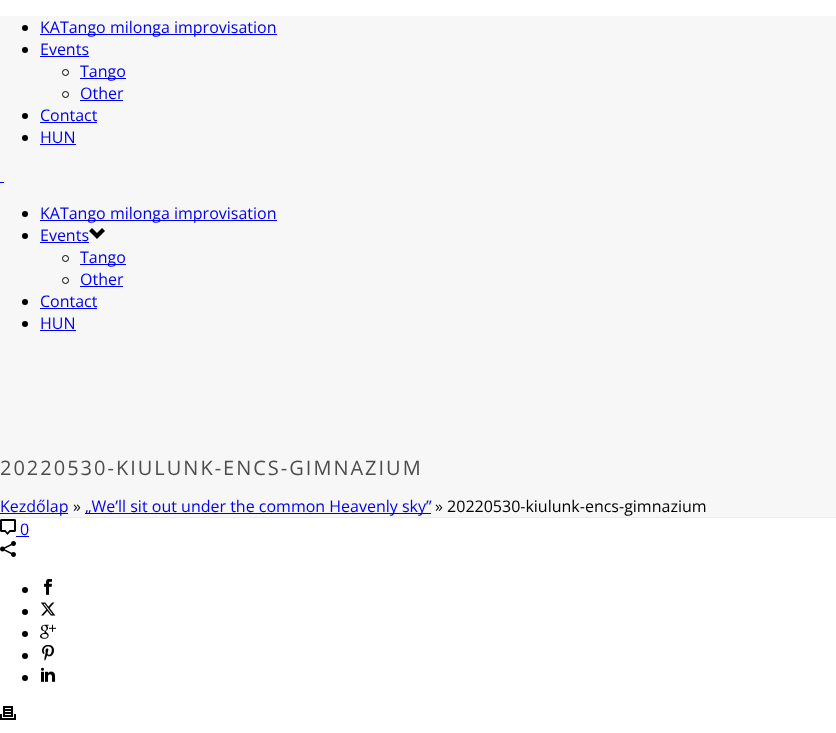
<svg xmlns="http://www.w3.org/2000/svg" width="836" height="733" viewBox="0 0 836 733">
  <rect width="100%" height="100%" fill="#fff"/>
  <path d="M0 16h836v501H0z" fill="#f7f7f7"/>
  <path d="M0 517h836v1H0z" fill="#ededed"/>
  <circle cx="25" cy="28" r="3" fill="#000"/>
  <path d="M40 34h237v1H40z" fill="#00e"/>
  <circle cx="25" cy="50" r="3" fill="#000"/>
  <path d="M40 56h49v1H40z" fill="#00e"/>
  <circle cx="65.5" cy="72.5" r="3" fill="none" stroke="#000"/>
  <path d="M80 78h46v1H80z" fill="#00e"/>
  <circle cx="65.5" cy="94.5" r="3" fill="none" stroke="#000"/>
  <path d="M80 100h43v1H80z" fill="#00e"/>
  <circle cx="25" cy="116" r="3" fill="#000"/>
  <path d="M40 122h57v1H40z" fill="#00e"/>
  <circle cx="25" cy="138" r="3" fill="#000"/>
  <path d="M40 144h36v1H40z" fill="#00e"/>
  <path d="M0 182h4v1H0z" fill="#00e"/>
  <circle cx="25" cy="214" r="3" fill="#000"/>
  <path d="M40 220h237v1H40z" fill="#00e"/>
  <circle cx="25" cy="236" r="3" fill="#000"/>
  <path d="M40 242h49v1H40z" fill="#00e"/>
  <image x="89" y="228" width="16" height="11" href="img/1.png"/>
  <circle cx="65.5" cy="258.5" r="3" fill="none" stroke="#000"/>
  <path d="M80 264h46v1H80z" fill="#00e"/>
  <circle cx="65.5" cy="280.5" r="3" fill="none" stroke="#000"/>
  <path d="M80 286h43v1H80z" fill="#00e"/>
  <circle cx="25" cy="302" r="3" fill="#000"/>
  <path d="M40 308h57v1H40z" fill="#00e"/>
  <circle cx="25" cy="324" r="3" fill="#000"/>
  <path d="M40 330h36v1H40z" fill="#00e"/>
  <path d="M0 513h68v1H0z" fill="#00e"/>
  <path d="M85 513h346v1H85z" fill="#00e"/>
  <image x="0" y="519" width="16" height="16" href="img/2.png"/>
  <path d="M16 536h13v1H16z" fill="#00e"/>
  <image x="0" y="541" width="16" height="16" href="img/3.png"/>
  <circle cx="25" cy="590" r="3" fill="#000"/>
  <image x="44" y="579" width="8" height="16" href="img/4.png"/>
  <circle cx="25" cy="612" r="3" fill="#000"/>
  <image x="41" y="602" width="15" height="14" href="img/5.png"/>
  <circle cx="25" cy="634" r="3" fill="#000"/>
  <image x="40" y="624" width="16" height="15" href="img/6.png"/>
  <circle cx="25" cy="656" r="3" fill="#000"/>
  <image x="42" y="645" width="12" height="16" href="img/7.png"/>
  <circle cx="25" cy="678" r="3" fill="#000"/>
  <image x="41" y="667" width="15" height="15" href="img/8.png"/>
  <image x="0" y="706" width="16" height="14" href="img/9.png"/>
  <g font-family="Open Sans" font-size="16" fill="#00e">
    <text x="40" y="33">KATango milonga improvisation</text>
    <text x="40" y="55">Events</text>
    <text x="80" y="77">Tango</text>
    <text x="80" y="99">Other</text>
    <text x="40" y="121">Contact</text>
    <text x="40" y="143">HUN</text>
    <text x="40" y="219">KATango milonga improvisation</text>
    <text x="40" y="241">Events</text>
    <text x="80" y="263">Tango</text>
    <text x="80" y="285">Other</text>
    <text x="40" y="307">Contact</text>
    <text x="40" y="329">HUN</text>
  </g>
  <text x="0" y="475" font-family="Open Sans" font-size="20" letter-spacing="2" fill="#4d4d4d">20220530-KIULUNK-ENCS-GIMNAZIUM</text>
  <text x="0" y="512" font-family="Open Sans" font-size="16" fill="#00e">Kezdőlap</text>
  <text x="73" y="512" font-family="Open Sans" font-size="16" fill="#000">»</text>
  <text x="85" y="512" font-family="Open Sans" font-size="16" fill="#00e">„We’ll sit out under the common Heavenly sky”</text>
  <text x="435" y="512" font-family="Open Sans" font-size="16" fill="#000">» 20220530-kiulunk-encs-gimnazium</text>
  <text x="20" y="535" font-family="Open Sans" font-size="16" fill="#00e">0</text>
</svg>
